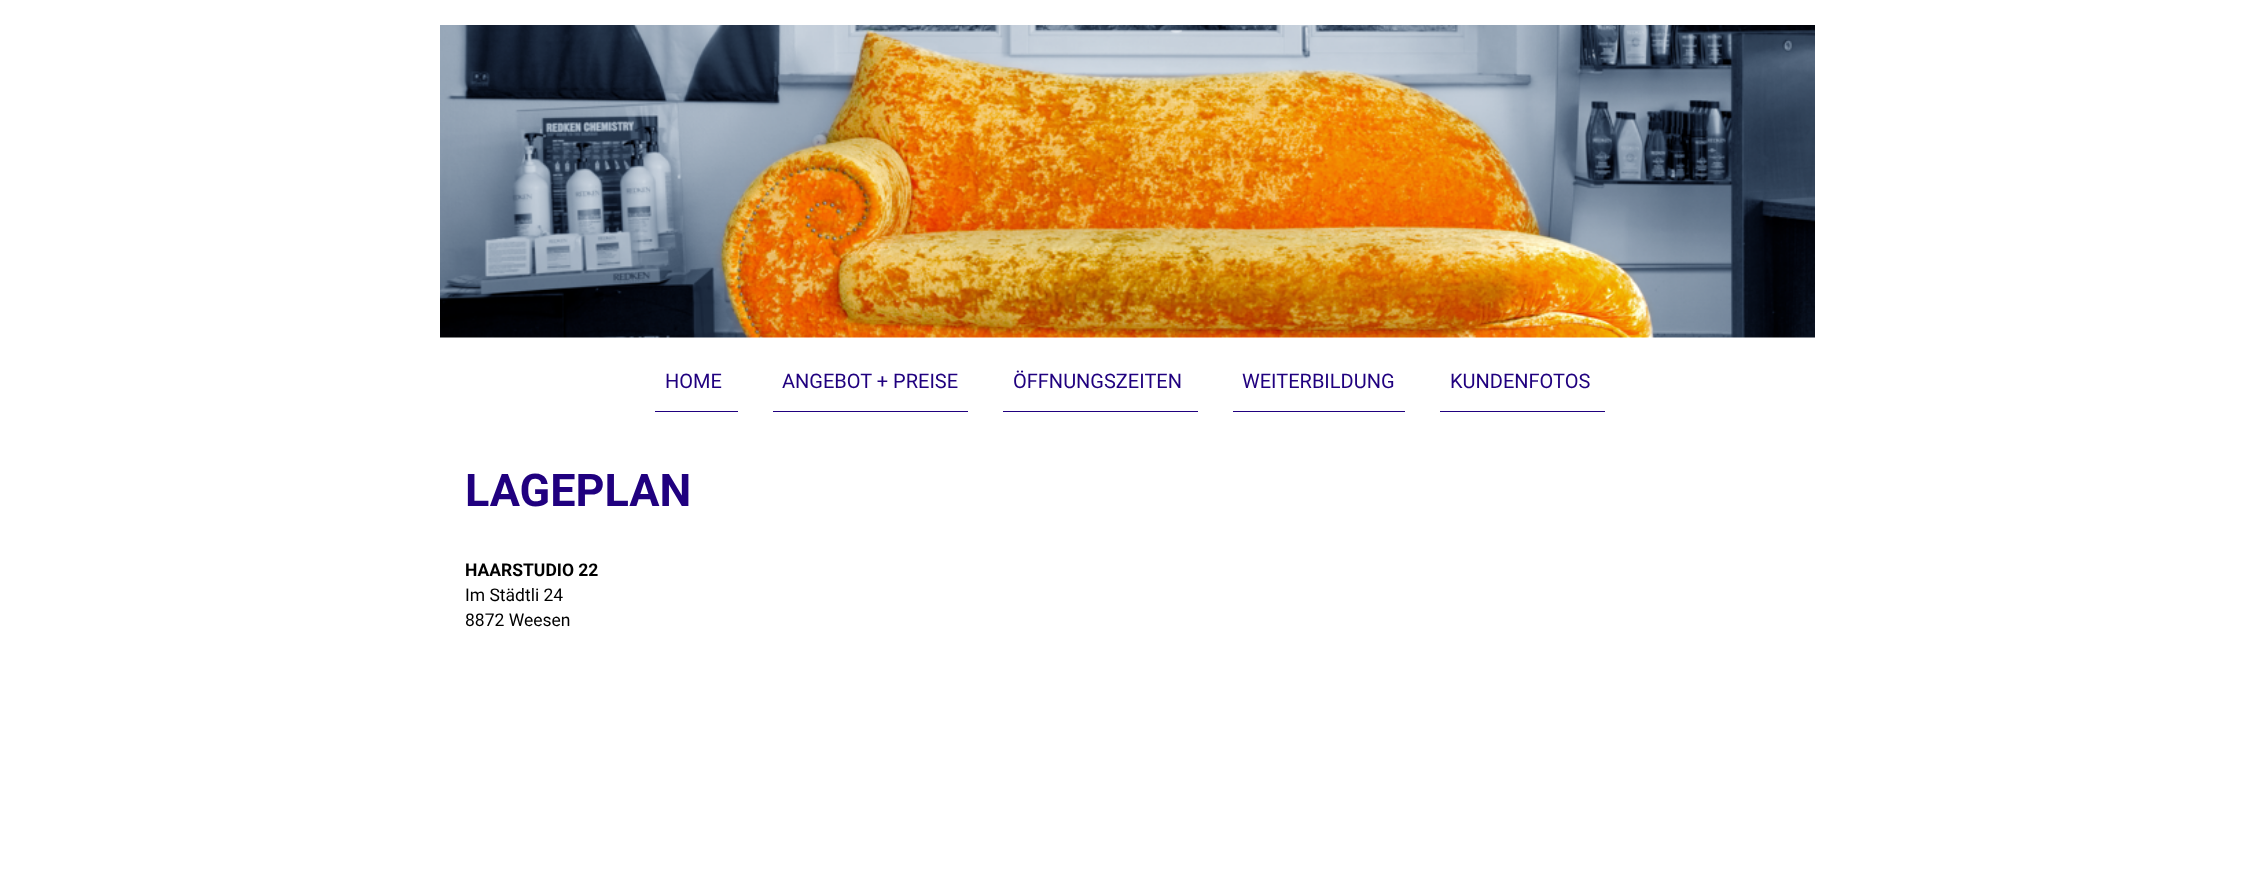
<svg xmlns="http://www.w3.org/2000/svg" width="2254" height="888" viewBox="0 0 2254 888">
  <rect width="100%" height="100%" fill="#fff"/>
  <image x="440" y="25" width="1375" height="313" href="img/1.png"/>
  <path d="M655 411h83v1H655z" fill="#20007f"/>
  <path d="M773 411h195v1H773z" fill="#20007f"/>
  <path d="M1003 411h195v1H1003z" fill="#20007f"/>
  <path d="M1233 411h172v1H1233z" fill="#20007f"/>
  <path d="M1440 411h165v1H1440z" fill="#20007f"/>
  <g font-family="Roboto" font-size="20" fill="#20007f">
    <text x="665" y="388">HOME</text>
    <text x="782" y="388">ANGEBOT + PREISE</text>
    <text x="1013" y="388">ÖFFNUNGSZEITEN</text>
    <text x="1242" y="388">WEITERBILDUNG</text>
    <text x="1450" y="388">KUNDENFOTOS</text>
  </g>
  <text x="465" y="506" font-family="Roboto" font-size="45" font-weight="bold" fill="#20007f">LAGEPLAN</text>
  <text x="465" y="576" font-family="Roboto" font-size="17.5" font-weight="bold" fill="#000">HAARSTUDIO 22</text>
  <g font-family="Roboto" font-size="17.5" fill="#000">
    <text x="465" y="601">Im Städtli 24</text>
    <text x="465" y="626">8872 Weesen</text>
  </g>
</svg>
